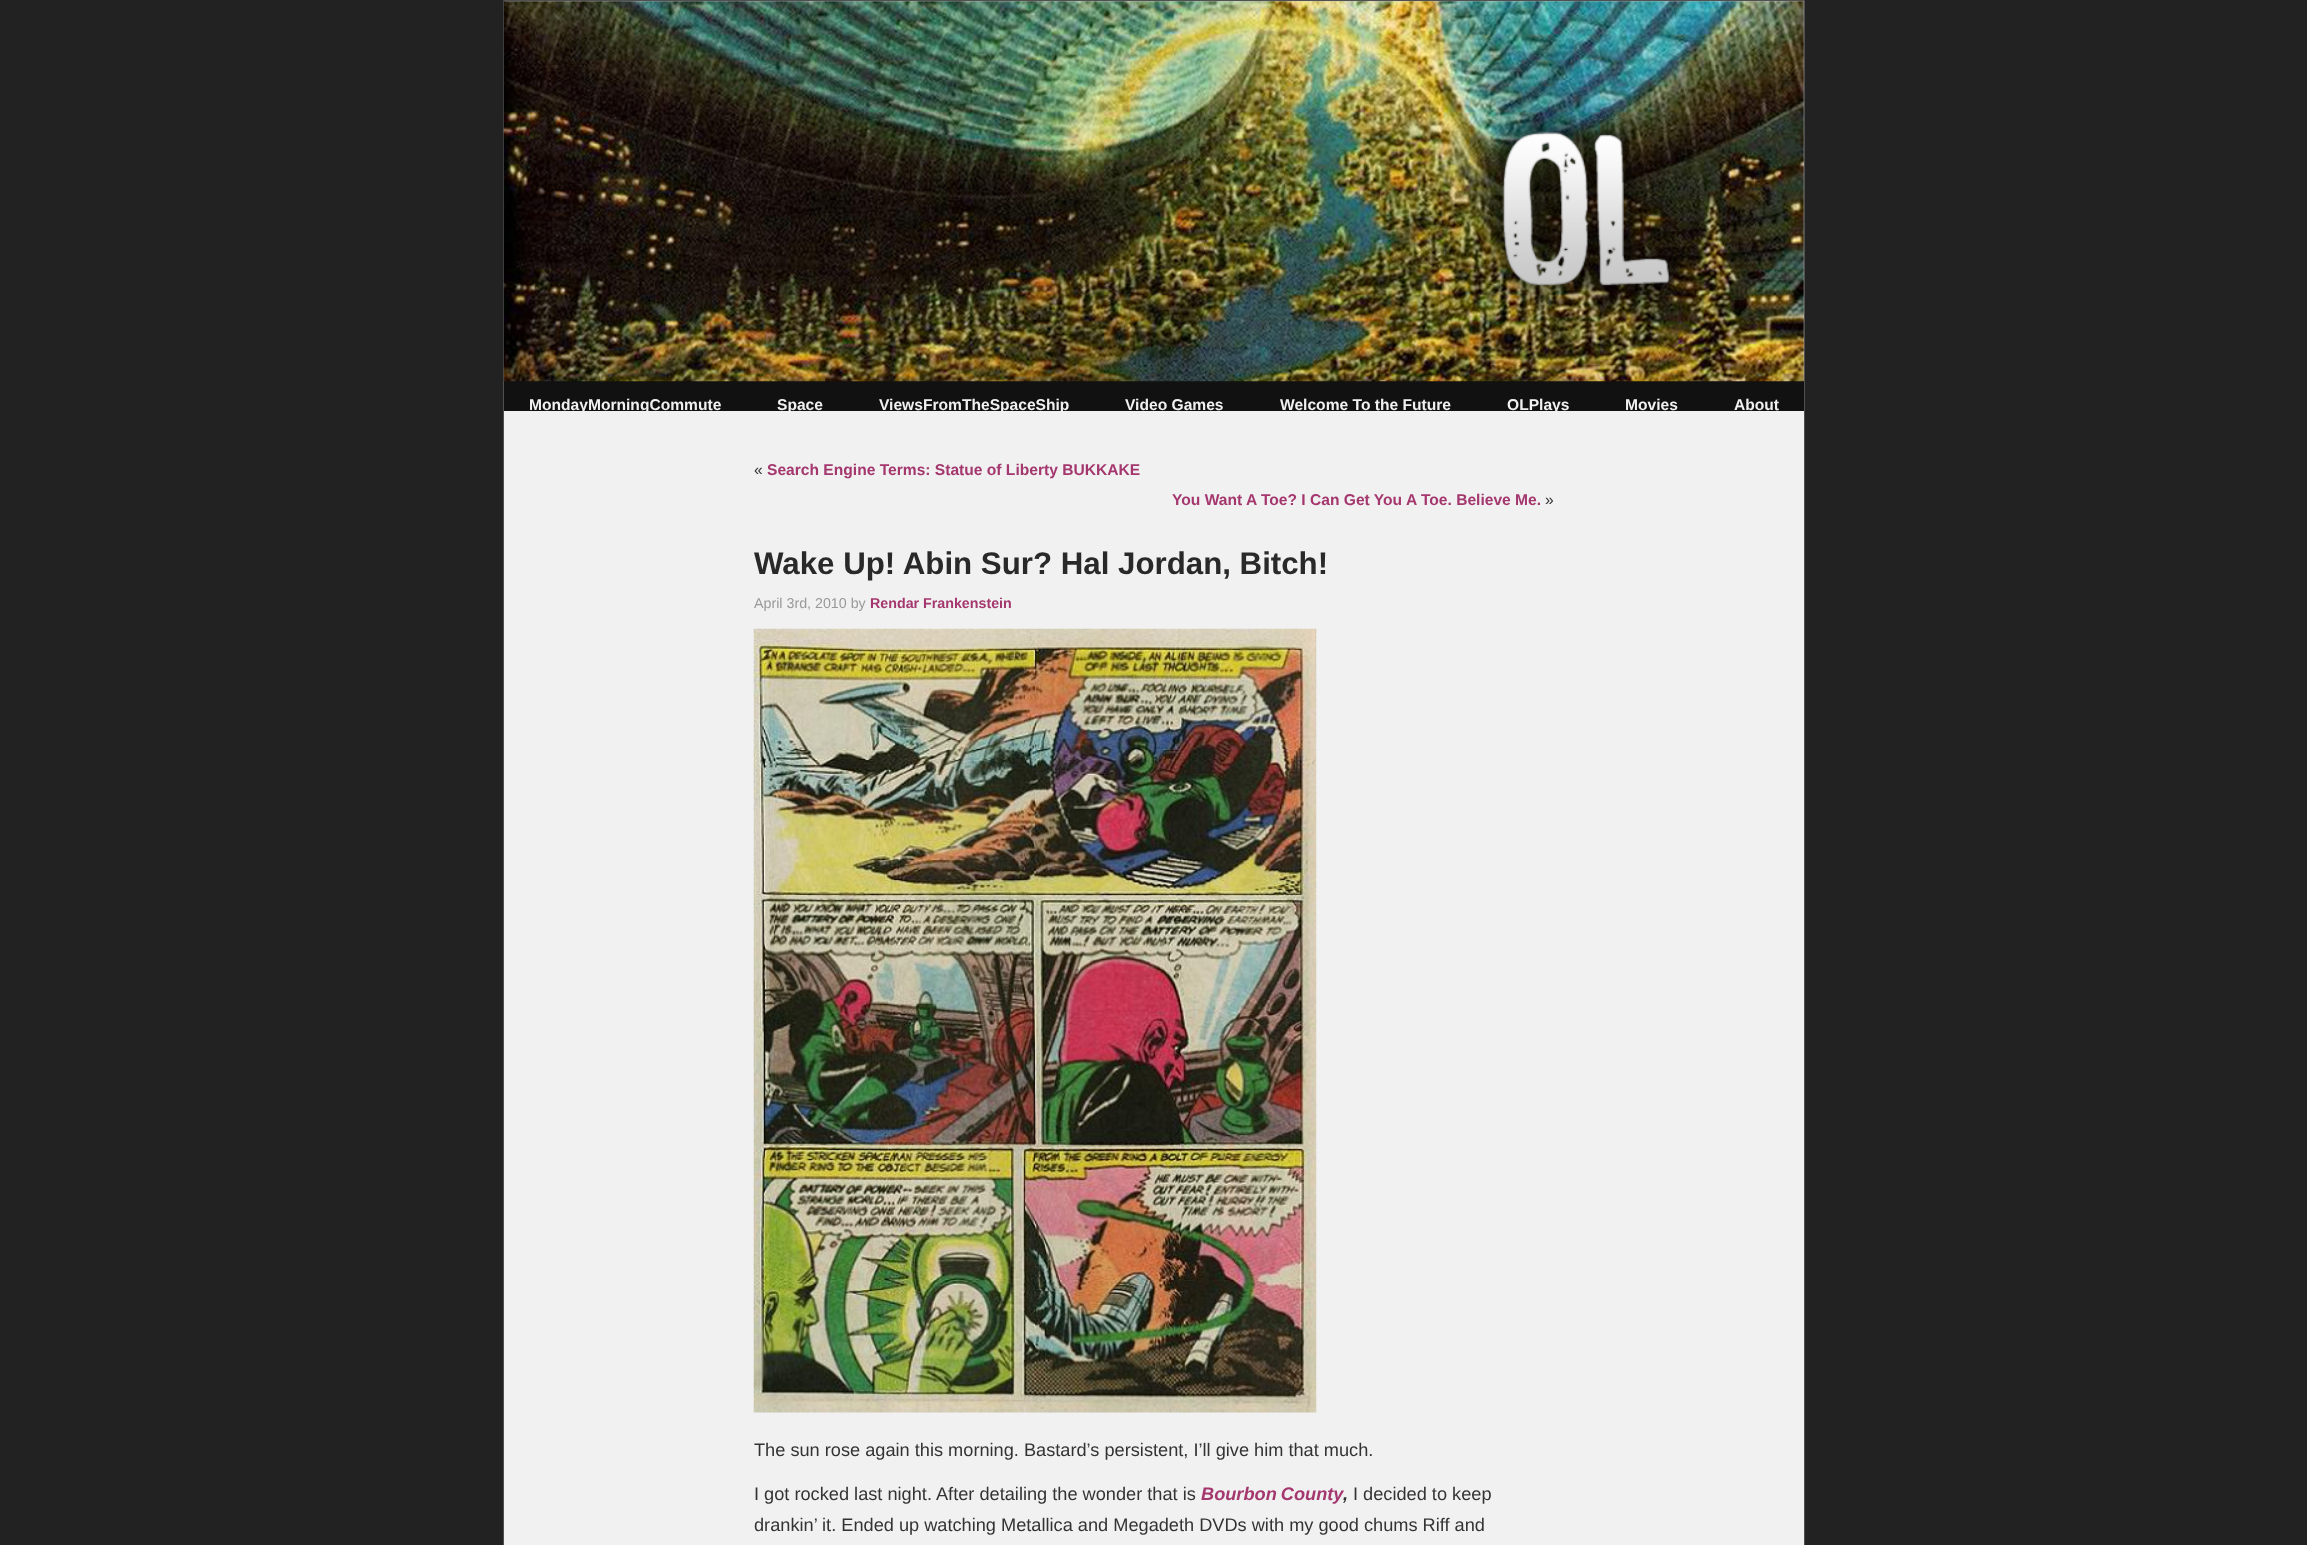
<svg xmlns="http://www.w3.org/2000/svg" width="2307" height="1545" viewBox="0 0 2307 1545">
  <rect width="100%" height="100%" fill="#222"/>
  <path d="M504 1h1300v380H504z" fill="#c7c7c7"/>
  <path d="M503.5 0.5h1301v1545H503.5z" fill="none" stroke="#515151"/>
  <path d="M504 381h1300v30H504z" fill="#111"/>
  <image x="503" y="1" width="1301" height="381" href="img/1.png"/>
  <image x="1477" y="107" width="215" height="204" href="img/2.png"/>
  <path d="M504 411h1300v1134H504z" fill="#f1f1f1"/>
  <image x="753" y="628" width="564" height="785" href="img/3.png"/>
  <g font-family="Liberation Sans" font-size="15.6" font-weight="bold" fill="#f1f1f1">
    <text x="529" y="410">MondayMorningCommute</text>
    <text x="777" y="410">Space</text>
    <text x="879" y="410">ViewsFromTheSpaceShip</text>
    <text x="1125" y="410">Video Games</text>
    <text x="1280" y="410">Welcome To the Future</text>
    <text x="1507" y="410">OLPlays</text>
    <text x="1625" y="410">Movies</text>
    <text x="1734" y="410">About</text>
  </g>
  <text x="754" y="475" font-family="Liberation Sans" font-size="15.6" fill="#333">«</text>
  <g font-family="Liberation Sans" font-size="15.6" font-weight="bold" fill="#a4376e">
    <text x="767" y="475">Search Engine Terms: Statue of Liberty BUKKAKE</text>
    <text x="1172" y="505">You Want A Toe? I Can Get You A Toe. Believe</text>
    <text x="1515" y="505">Me.</text>
  </g>
  <text x="1545" y="505" font-family="Liberation Sans" font-size="15.6" fill="#333">»</text>
  <text x="754" y="574" font-family="Liberation Sans" font-size="31.25" font-weight="bold" fill="#292929">Wake Up! Abin Sur? Hal Jordan, Bitch!</text>
  <text x="754" y="608" font-family="Liberation Sans" font-size="14.25" fill="#999">April 3rd, 2010 by</text>
  <text x="870" y="608" font-family="Liberation Sans" font-size="14.25" font-weight="bold" fill="#a4376e">Rendar Frankenstein</text>
  <g font-family="Liberation Sans" font-size="18.2" fill="#333">
    <text x="754" y="1456">The sun rose again this morning. Bastard’s persistent, I’ll give him that much.</text>
    <text x="754" y="1500">I got rocked last night. After detailing the wonder that is</text>
  </g>
  <text x="1201" y="1500" word-spacing="-1" font-family="Liberation Sans" font-size="18.2" font-weight="bold" font-style="italic" fill="#a4376e">Bourbon County</text>
  <text x="1343" y="1500" font-family="Liberation Sans" font-size="18.2" font-weight="bold" font-style="italic" fill="#333">,</text>
  <g font-family="Liberation Sans" font-size="18.2" fill="#333">
    <text x="1353" y="1500">I decided to keep</text>
    <text x="754" y="1531">drankin’ it. Ended up watching Metallica and Megadeth DVDs with my good chums Riff and</text>
  </g>
</svg>
